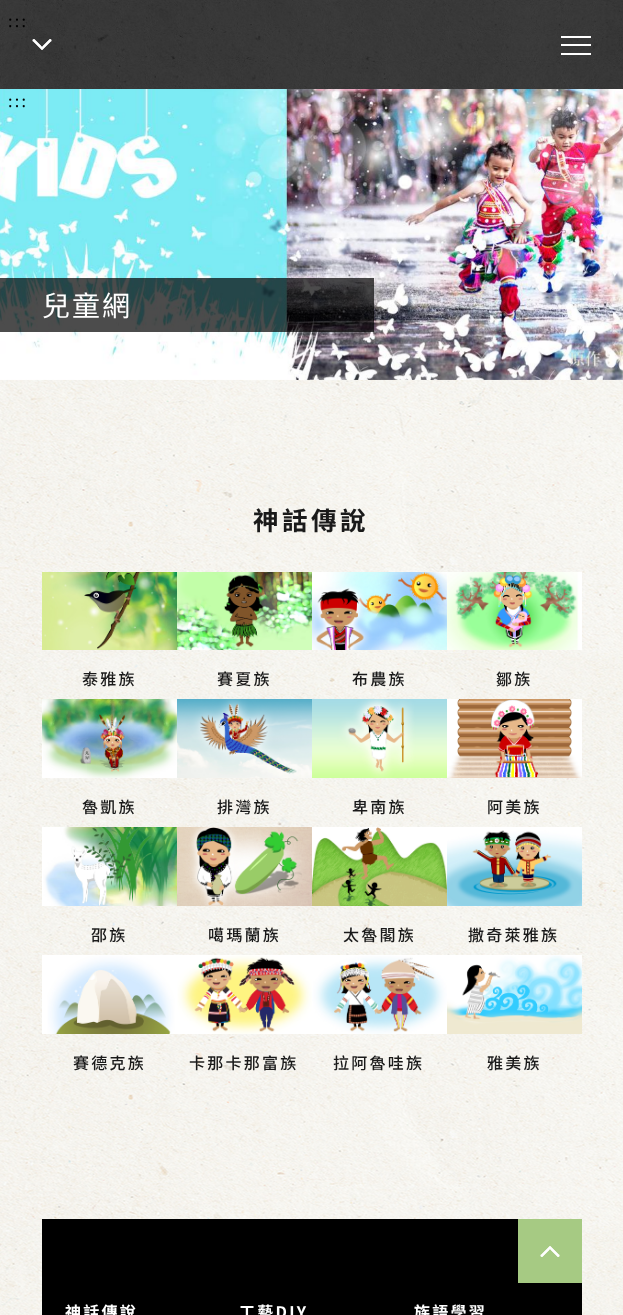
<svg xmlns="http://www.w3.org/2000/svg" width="623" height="1315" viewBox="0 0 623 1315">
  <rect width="100%" height="100%" fill="#fff"/>
  <image x="0" y="0" width="623" height="89" href="img/1.png"/>
  <image x="32" y="39" width="20" height="11" href="img/2.png"/>
  <path d="M561 36h30v2H561z" fill="#fff"/>
  <path d="M561 44h30v2H561z" fill="#fff"/>
  <path d="M561 53h30v2H561z" fill="#fff"/>
  <image x="0" y="89" width="623" height="1226" href="img/3.png"/>
  <image x="0" y="89" width="623" height="291" href="img/4.png"/>
  <path d="M0 278h374v54H0z" fill="#000000b3"/>
  <image x="42" y="572" width="135" height="78" href="img/5.png"/>
  <image x="177" y="572" width="135" height="78" href="img/6.png"/>
  <image x="312" y="572" width="135" height="78" href="img/7.png"/>
  <image x="447" y="572" width="135" height="78" href="img/8.png"/>
  <image x="42" y="699" width="135" height="79" href="img/9.png"/>
  <image x="177" y="699" width="135" height="79" href="img/10.png"/>
  <image x="312" y="699" width="135" height="79" href="img/11.png"/>
  <image x="447" y="699" width="135" height="79" href="img/12.png"/>
  <image x="42" y="827" width="135" height="79" href="img/13.png"/>
  <image x="177" y="827" width="135" height="79" href="img/14.png"/>
  <image x="312" y="827" width="135" height="79" href="img/15.png"/>
  <image x="447" y="827" width="135" height="79" href="img/16.png"/>
  <image x="42" y="955" width="135" height="79" href="img/17.png"/>
  <image x="177" y="955" width="135" height="79" href="img/18.png"/>
  <image x="312" y="955" width="135" height="79" href="img/19.png"/>
  <image x="447" y="955" width="135" height="79" href="img/20.png"/>
  <path d="M42 1219h540v96H42z" fill="#000"/>
  <path d="M518 1219h64v64H518z" fill="#a6ca83"/>
  <image x="540" y="1246" width="20" height="11" href="img/21.png"/>
  <g font-family="Noto Sans TC" font-size="16" letter-spacing="2.25" fill="#000">
    <text x="8" y="27">:::</text>
    <text x="8" y="107">:::</text>
  </g>
  <text x="42" y="316" font-family="Noto Sans TC" font-size="28" letter-spacing="2" fill="#fff">兒童網</text>
  <text x="253" y="530" font-family="Noto Sans TC" font-size="25.5" font-weight="bold" letter-spacing="3.5" fill="#1a1a1a">神話傳說</text>
  <g font-family="Noto Sans TC" font-size="16" font-weight="500" letter-spacing="2.25" fill="#1a1a1a">
    <text x="82" y="685">泰雅族</text>
    <text x="217" y="685">賽夏族</text>
    <text x="352" y="685">布農族</text>
    <text x="496" y="685">鄒族</text>
    <text x="82" y="813">魯凱族</text>
    <text x="217" y="813">排灣族</text>
    <text x="352" y="813">卑南族</text>
    <text x="487" y="813">阿美族</text>
    <text x="91" y="941">邵族</text>
    <text x="208" y="941">噶瑪蘭族</text>
    <text x="343" y="941">太魯閣族</text>
    <text x="468" y="941">撒奇萊雅族</text>
    <text x="73" y="1069">賽德克族</text>
    <text x="189" y="1069">卡那卡那富族</text>
    <text x="333" y="1069">拉阿魯哇族</text>
    <text x="487" y="1069">雅美族</text>
  </g>
  <g font-family="Noto Sans TC" font-size="16" font-weight="bold" letter-spacing="2.25" fill="#fff">
    <text x="65" y="1318">神話傳說</text>
    <text x="239" y="1318">工藝DIY</text>
    <text x="414" y="1318">族語學習</text>
  </g>
</svg>
